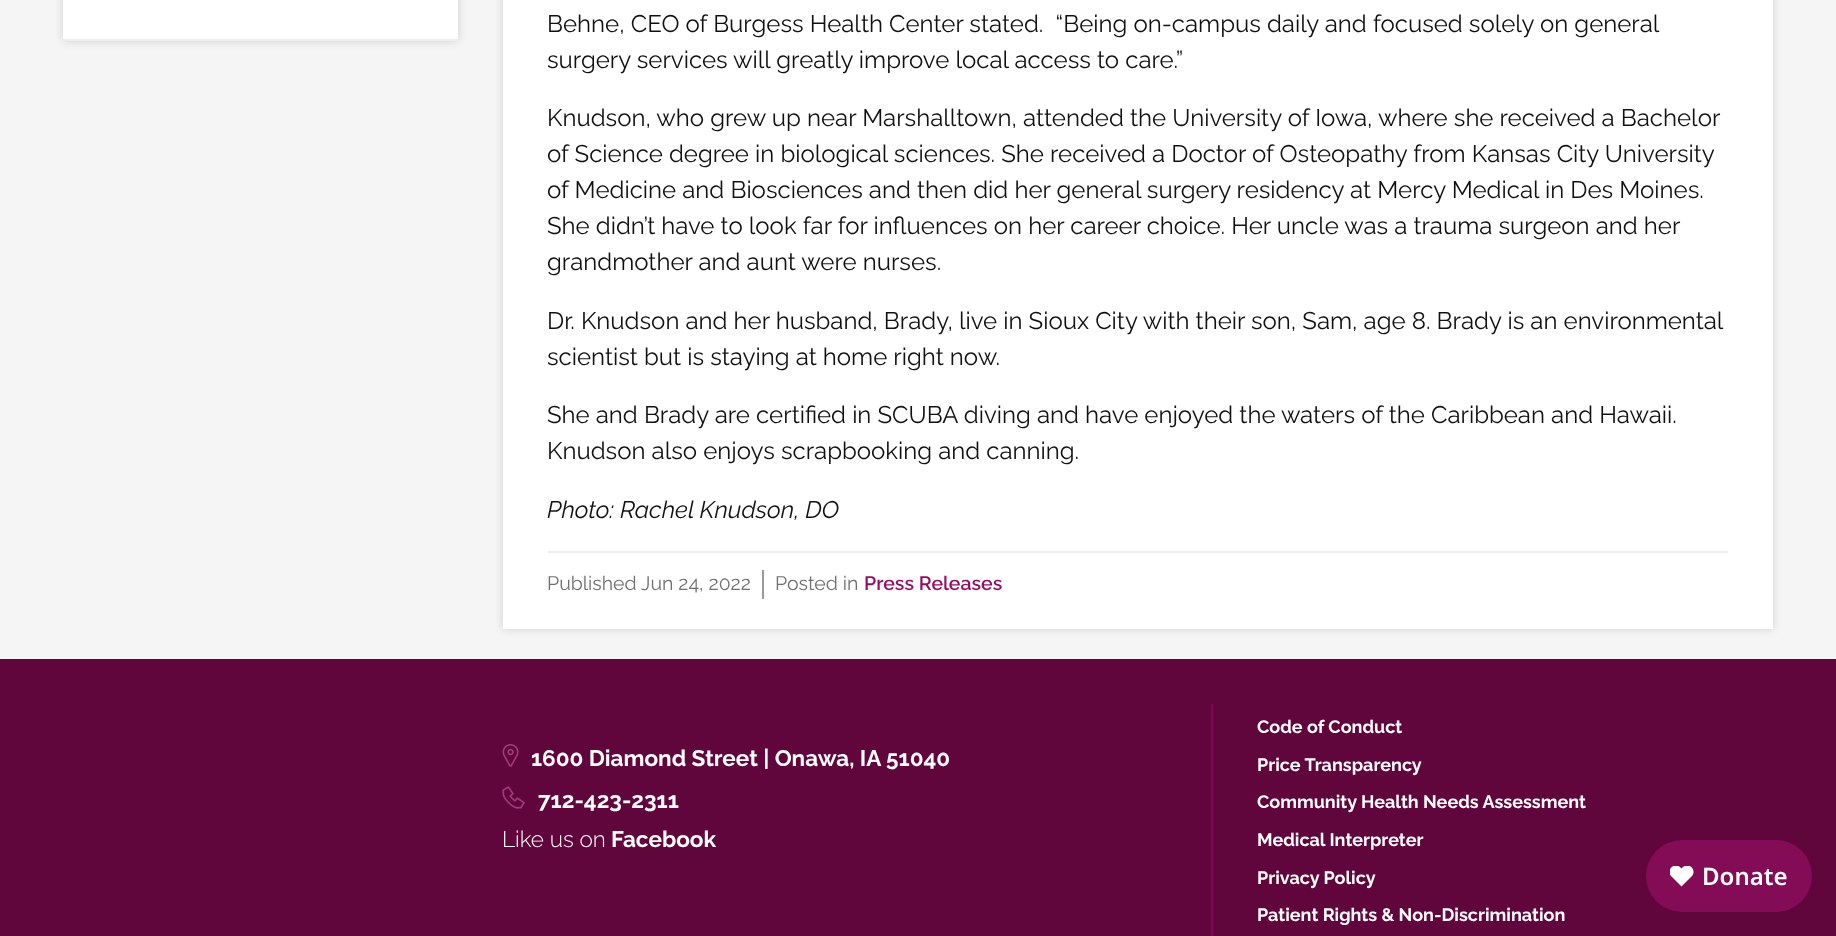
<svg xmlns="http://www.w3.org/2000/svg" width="1836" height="936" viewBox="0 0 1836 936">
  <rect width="100%" height="100%" fill="#61063c"/>
  <path d="M0 0h1836v659H0z" fill="#f5f5f5"/>
  <path d="M63 -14h395v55H63z" fill="#00000026" filter="blur(4.5px)"/>
  <path d="M63 0h395v39H63z" fill="#fff"/>
  <path d="M63 39h395v2H63z" fill="#eee"/>
  <path d="M503 -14h1270v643H503z" fill="#00000026" filter="blur(4.5px)"/>
  <path d="M503 0h1270v629H503z" fill="#fff"/>
  <path d="M548 551h1180v2H548z" fill="#eee"/>
  <path d="M762 570h2v29H762z" fill="#999"/>
  <image x="502" y="744" width="17" height="23" href="img/1.png"/>
  <image x="502" y="786" width="23" height="23" href="img/2.png"/>
  <path d="M1211 704h2v232H1211z" fill="#810654"/>
  <rect x="1646" y="840" width="166" height="72" rx="36" fill="#840b55"/>
  <image x="1670" y="866" width="24" height="21" href="img/3.png"/>
  <g font-family="Raleway" font-size="24" fill="#111">
    <text x="547" y="32" xml:space="preserve">Behne, CEO of Burgess Health Center stated.  “Being on-campus daily and focused solely on general</text>
    <text x="547" y="68">surgery services will greatly improve local access to care.”</text>
    <text x="547" y="126">Knudson, who grew up near Marshalltown, attended the University of Iowa, where she received a Bachelor</text>
    <text x="547" y="162">of Science degree in biological sciences. She received a Doctor of Osteopathy from Kansas City University</text>
    <text x="547" y="198">of Medicine and Biosciences and then did her general surgery residency at Mercy Medical in Des Moines.</text>
    <text x="547" y="234">She didn’t have to look far for influences on her career choice. Her uncle was a trauma surgeon and her</text>
    <text x="547" y="270">grandmother and aunt were nurses.</text>
    <text x="547" y="329">Dr. Knudson and her husband, Brady, live in Sioux City with their son, Sam, age 8. Brady is an environmental</text>
    <text x="547" y="365">scientist but is staying at home right now.</text>
    <text x="547" y="423">She and Brady are certified in SCUBA diving and have enjoyed the waters of the Caribbean and Hawaii.</text>
    <text x="547" y="459">Knudson also enjoys scrapbooking and canning.</text>
  </g>
  <text x="547" y="518" font-family="Raleway" font-size="24" font-style="italic" fill="#111">Photo: Rachel Knudson, DO</text>
  <g font-family="Raleway" font-size="19.5" fill="#707070">
    <text x="547" y="590">Published Jun 24, 2022</text>
    <text x="775" y="590">Posted in</text>
  </g>
  <text x="864" y="590" font-family="Raleway" font-size="19.5" font-weight="600" fill="#960d64">Press Releases</text>
  <g font-family="Raleway" font-size="22.5" font-weight="bold" fill="#fff">
    <text x="531" y="766">1600 Diamond Street | Onawa, IA 51040</text>
    <text x="538" y="808">712-423-2311</text>
  </g>
  <text x="502" y="847" font-family="Raleway" font-size="22.5" font-weight="300" fill="#fff">Like us on</text>
  <text x="611" y="847" font-family="Raleway" font-size="22.5" font-weight="bold" fill="#fff">Facebook</text>
  <g font-family="Raleway" font-size="18" font-weight="bold" fill="#fff">
    <text x="1257" y="733">Code of Conduct</text>
    <text x="1257" y="771">Price Transparency</text>
    <text x="1257" y="808">Community Health Needs Assessment</text>
    <text x="1257" y="846">Medical Interpreter</text>
    <text x="1257" y="884">Privacy Policy</text>
    <text x="1257" y="921">Patient Rights &amp; Non-Discrimination</text>
  </g>
  <text x="1702" y="885" font-family="Noto Sans" font-size="24" font-weight="600" fill="#fff">Donate</text>
</svg>
